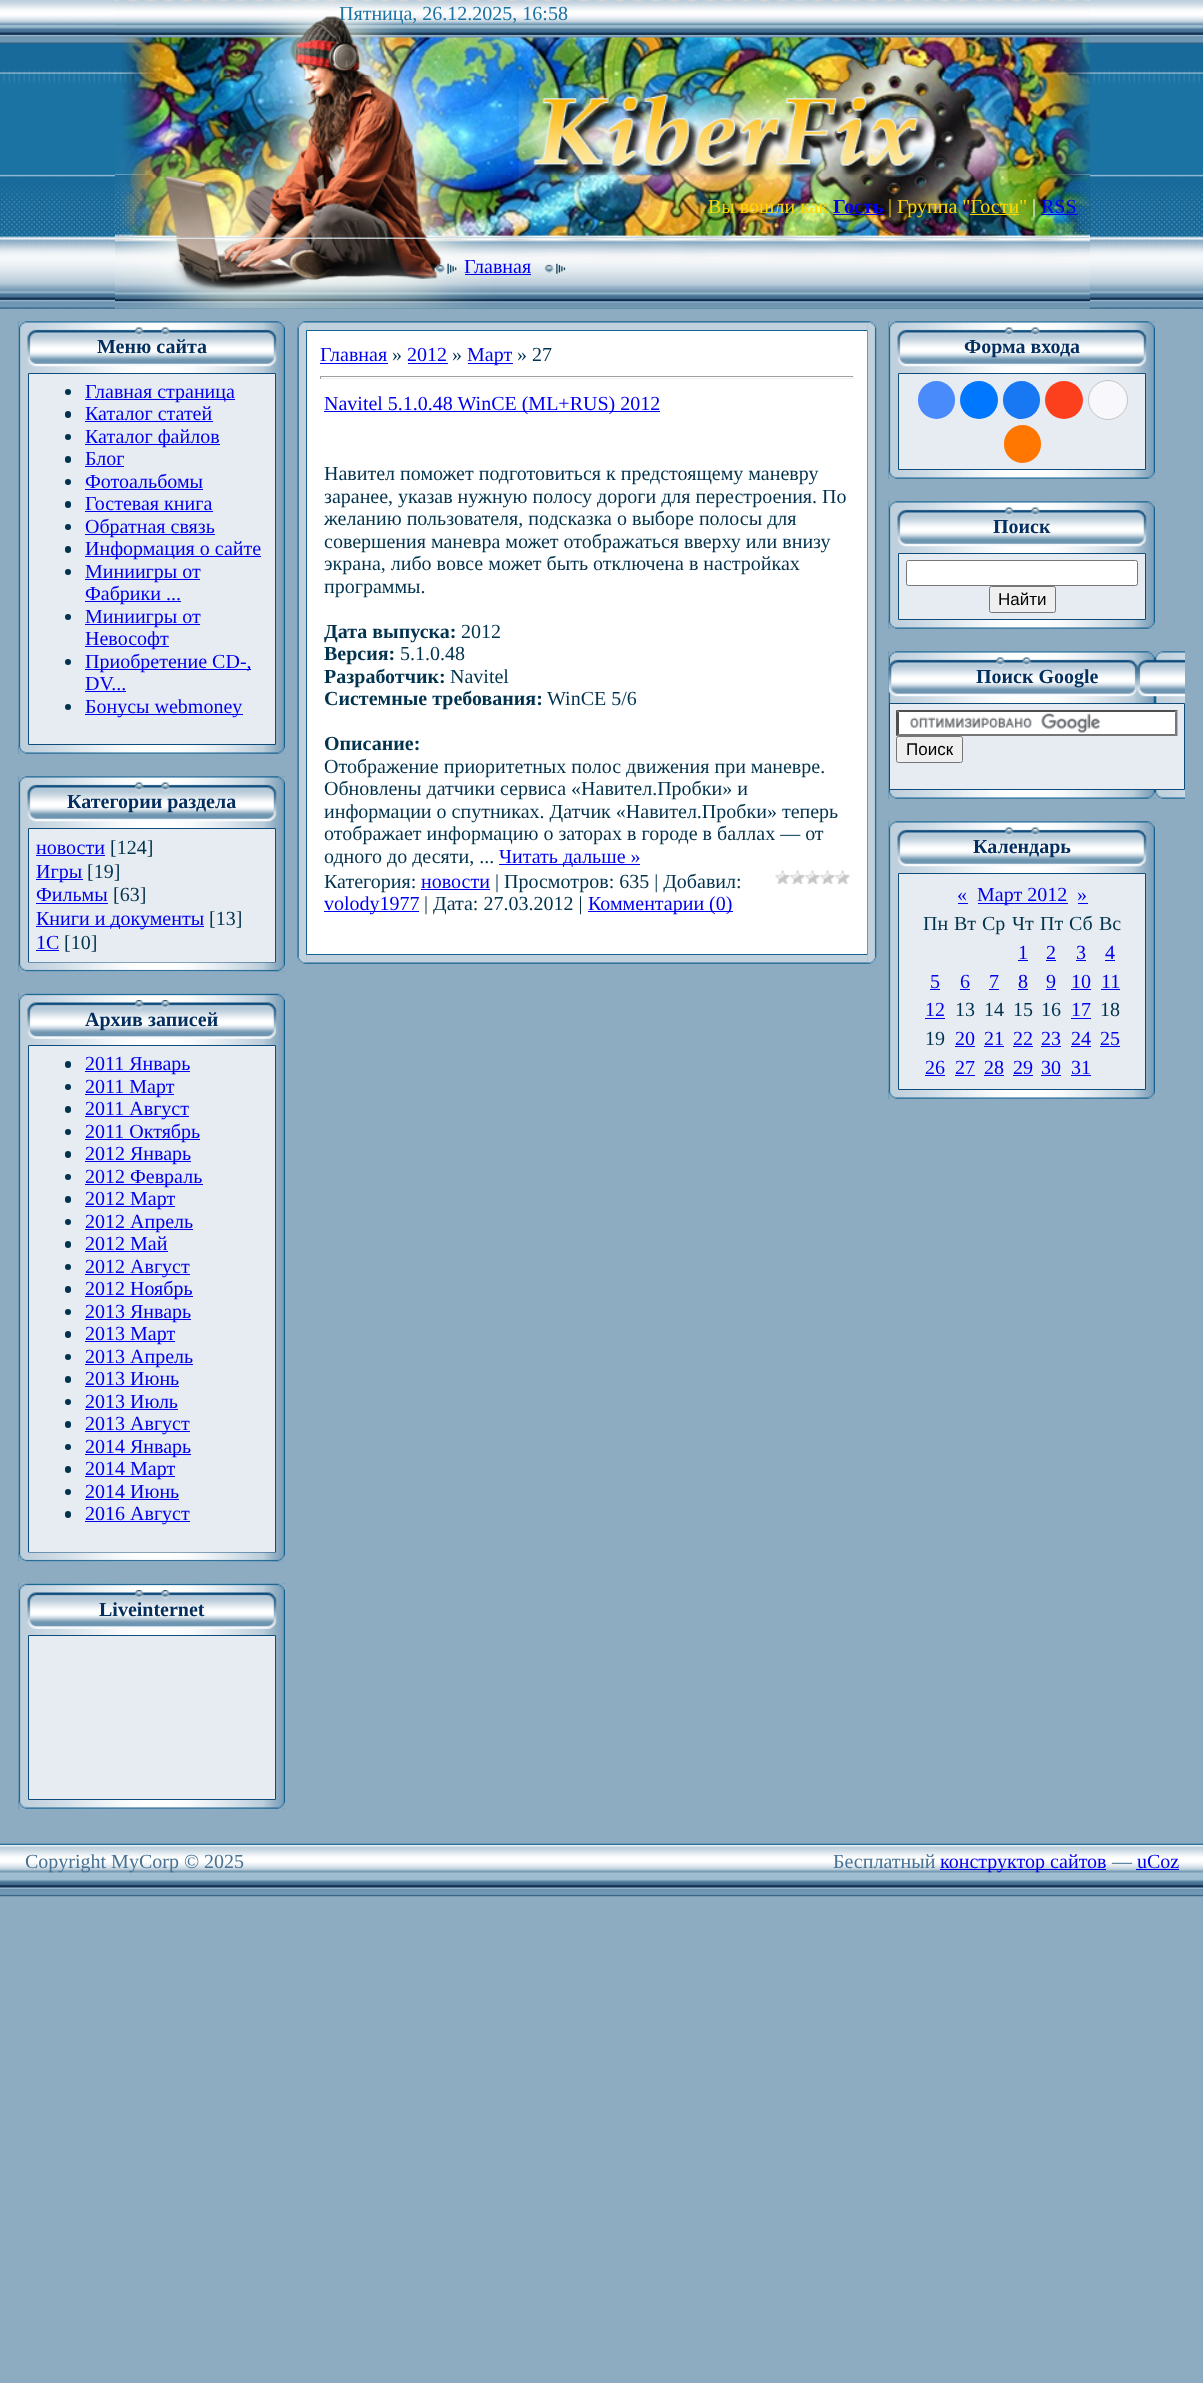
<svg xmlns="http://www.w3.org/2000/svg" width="1203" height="2383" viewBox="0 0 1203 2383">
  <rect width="100%" height="100%" fill="#8dacc2"/>
  <image x="0" y="0" width="1203" height="309" href="img/1.png"/>
  <image x="115" y="0" width="975" height="75" href="img/2.png"/>
  <image x="115" y="75" width="975" height="100" href="img/3.png"/>
  <image x="115" y="175" width="975" height="63" href="img/4.png"/>
  <path d="M833 214h50v1H833z" fill="#00e"/>
  <path d="M970 214h49v1H970z" fill="#ffd700"/>
  <path d="M1041 214h37v1H1041z" fill="#00e"/>
  <image x="115" y="238" width="975" height="71" href="img/5.png"/>
  <image x="436" y="263" width="21" height="11" href="img/6.png"/>
  <path d="M465 274h66v1H465z" fill="#00e"/>
  <image x="544" y="263" width="22" height="11" href="img/7.png"/>
  <image x="18" y="321" width="267" height="433" href="img/8.png"/>
  <image x="18" y="321" width="267" height="7" href="img/9.png"/>
  <image x="27" y="327" width="250" height="40" href="img/10.png"/>
  <path d="M28.5 373.5h247v371H28.5z" fill="#e6ecf1" stroke="#0e4c7c"/>
  <circle cx="68" cy="392" r="3" fill="#01324e"/>
  <path d="M85 399h150v1H85z" fill="#00e"/>
  <rect x="65" y="411" width="6" height="7" rx="3" fill="#01324e"/>
  <path d="M85 421h128v1H85z" fill="#00e"/>
  <circle cx="68" cy="437" r="3" fill="#01324e"/>
  <path d="M85 444h135v1H85z" fill="#00e"/>
  <rect x="65" y="456" width="6" height="7" rx="3" fill="#01324e"/>
  <path d="M85 466h39v1H85z" fill="#00e"/>
  <circle cx="68" cy="482" r="3" fill="#01324e"/>
  <path d="M85 489h118v1H85z" fill="#00e"/>
  <rect x="65" y="501" width="6" height="7" rx="3" fill="#01324e"/>
  <path d="M85 511h128v1H85z" fill="#00e"/>
  <circle cx="68" cy="527" r="3" fill="#01324e"/>
  <path d="M85 534h130v1H85z" fill="#00e"/>
  <rect x="65" y="546" width="6" height="7" rx="3" fill="#01324e"/>
  <path d="M85 556h176v1H85z" fill="#00e"/>
  <circle cx="68" cy="572" r="3" fill="#01324e"/>
  <path d="M85 579h115v1H85z" fill="#00e"/>
  <path d="M85 601h96v1H85z" fill="#00e"/>
  <circle cx="68" cy="617" r="3" fill="#01324e"/>
  <path d="M85 624h115v1H85z" fill="#00e"/>
  <path d="M85 646h84v1H85z" fill="#00e"/>
  <circle cx="68" cy="662" r="3" fill="#01324e"/>
  <path d="M85 669h166v1H85z" fill="#00e"/>
  <path d="M85 691h41v1H85z" fill="#00e"/>
  <circle cx="68" cy="707" r="3" fill="#01324e"/>
  <path d="M85 714h158v1H85z" fill="#00e"/>
  <image x="18" y="745" width="267" height="9" href="img/11.png"/>
  <image x="18" y="776" width="267" height="196" href="img/12.png"/>
  <image x="18" y="776" width="267" height="7" href="img/9.png"/>
  <image x="27" y="782" width="250" height="40" href="img/10.png"/>
  <path d="M28.5 828.5h247v134H28.5z" fill="#e6ecf1" stroke="#0e4c7c"/>
  <path d="M36 855h69v1H36z" fill="#00e"/>
  <path d="M36 879h47v1H36z" fill="#00e"/>
  <path d="M36 903h72v1H36z" fill="#00e"/>
  <path d="M36 926h168v1H36z" fill="#00e"/>
  <path d="M36 950h23v1H36z" fill="#00e"/>
  <image x="18" y="962" width="267" height="10" href="img/13.png"/>
  <image x="18" y="993" width="267" height="569" href="img/14.png"/>
  <image x="18" y="993" width="267" height="7" href="img/15.png"/>
  <image x="27" y="1000" width="250" height="39" href="img/16.png"/>
  <path d="M28.5 1045.5h247v507H28.5z" fill="#e6ecf1" stroke="#0e4c7c"/>
  <rect x="65" y="1061" width="6" height="7" rx="3" fill="#01324e"/>
  <path d="M85 1071h105v1H85z" fill="#00e"/>
  <circle cx="68" cy="1087" r="3" fill="#01324e"/>
  <path d="M85 1094h89v1H85z" fill="#00e"/>
  <rect x="65" y="1106" width="6" height="7" rx="3" fill="#01324e"/>
  <path d="M85 1116h104v1H85z" fill="#00e"/>
  <circle cx="68" cy="1132" r="3" fill="#01324e"/>
  <path d="M85 1139h115v1H85z" fill="#00e"/>
  <rect x="65" y="1151" width="6" height="7" rx="3" fill="#01324e"/>
  <path d="M85 1161h106v1H85z" fill="#00e"/>
  <circle cx="68" cy="1177" r="3" fill="#01324e"/>
  <path d="M85 1184h118v1H85z" fill="#00e"/>
  <rect x="65" y="1196" width="6" height="7" rx="3" fill="#01324e"/>
  <path d="M85 1206h90v1H85z" fill="#00e"/>
  <circle cx="68" cy="1222" r="3" fill="#01324e"/>
  <path d="M85 1229h108v1H85z" fill="#00e"/>
  <rect x="65" y="1241" width="6" height="7" rx="3" fill="#01324e"/>
  <path d="M85 1251h83v1H85z" fill="#00e"/>
  <circle cx="68" cy="1267" r="3" fill="#01324e"/>
  <path d="M85 1274h105v1H85z" fill="#00e"/>
  <rect x="65" y="1286" width="6" height="7" rx="3" fill="#01324e"/>
  <path d="M85 1296h108v1H85z" fill="#00e"/>
  <circle cx="68" cy="1312" r="3" fill="#01324e"/>
  <path d="M85 1319h106v1H85z" fill="#00e"/>
  <rect x="65" y="1331" width="6" height="7" rx="3" fill="#01324e"/>
  <path d="M85 1341h90v1H85z" fill="#00e"/>
  <circle cx="68" cy="1357" r="3" fill="#01324e"/>
  <path d="M85 1364h108v1H85z" fill="#00e"/>
  <rect x="65" y="1376" width="6" height="7" rx="3" fill="#01324e"/>
  <path d="M85 1386h94v1H85z" fill="#00e"/>
  <circle cx="68" cy="1402" r="3" fill="#01324e"/>
  <path d="M85 1409h93v1H85z" fill="#00e"/>
  <rect x="65" y="1421" width="6" height="7" rx="3" fill="#01324e"/>
  <path d="M85 1431h105v1H85z" fill="#00e"/>
  <circle cx="68" cy="1447" r="3" fill="#01324e"/>
  <path d="M85 1454h106v1H85z" fill="#00e"/>
  <rect x="65" y="1466" width="6" height="7" rx="3" fill="#01324e"/>
  <path d="M85 1476h90v1H85z" fill="#00e"/>
  <circle cx="68" cy="1492" r="3" fill="#01324e"/>
  <path d="M85 1499h94v1H85z" fill="#00e"/>
  <rect x="65" y="1511" width="6" height="7" rx="3" fill="#01324e"/>
  <path d="M85 1521h105v1H85z" fill="#00e"/>
  <image x="18" y="1552" width="267" height="10" href="img/13.png"/>
  <image x="18" y="1583" width="267" height="226" href="img/17.png"/>
  <image x="18" y="1583" width="267" height="7" href="img/15.png"/>
  <image x="27" y="1590" width="250" height="39" href="img/16.png"/>
  <path d="M28.5 1635.5h247v164H28.5z" fill="#e6ecf1" stroke="#0e4c7c"/>
  <image x="18" y="1800" width="267" height="9" href="img/11.png"/>
  <image x="306" y="321" width="562" height="9" href="img/19.png"/>
  <image x="297" y="321" width="10" height="9" href="img/18.png"/>
  <image x="867" y="321" width="10" height="9" href="img/20.png"/>
  <image x="297" y="330" width="9" height="625" href="img/21.png"/>
  <path d="M306.5 330.5h561v624H306.5z" fill="#fff" stroke="#146090"/>
  <path d="M320 363h68v1H320z" fill="#00e"/>
  <path d="M408 363h40v1H408z" fill="#00e"/>
  <path d="M468 363h45v1H468z" fill="#00e"/>
  <path d="M320 376h534v1H320z" fill="#9f9f9f"/>
  <path d="M853 376h1v3H853z" fill="#eee"/>
  <path d="M320 378h534v1H320z" fill="#eee"/>
  <path d="M320 376h1v3H320z" fill="#9f9f9f"/>
  <path d="M324 411h336v1H324z" fill="#00e"/>
  <path d="M499 864h141v1H499z" fill="#00e"/>
  <path d="M421 889h69v1H421z" fill="#00e"/>
  <image x="775" y="870" width="75" height="15" href="img/22.png"/>
  <path d="M324 911h95v1H324z" fill="#00e"/>
  <path d="M588 911h145v1H588z" fill="#00e"/>
  <image x="867" y="330" width="10" height="625" href="img/23.png"/>
  <image x="306" y="955" width="562" height="9" href="img/25.png"/>
  <image x="297" y="955" width="10" height="9" href="img/24.png"/>
  <image x="867" y="955" width="10" height="9" href="img/26.png"/>
  <image x="888" y="321" width="267" height="158" href="img/27.png"/>
  <image x="888" y="321" width="267" height="7" href="img/28.png"/>
  <image x="897" y="327" width="250" height="40" href="img/29.png"/>
  <path d="M898.5 373.5h247v96H898.5z" fill="#e6ecf1" stroke="#0e4c7c"/>
  <rect x="918" y="381" width="37" height="38" rx="18.5" fill="#498bfa"/>
  <circle cx="979" cy="400" r="19" fill="#07f"/>
  <rect x="1003" y="381" width="37" height="38" rx="18.5" fill="#1877f2"/>
  <circle cx="1064" cy="400" r="19" fill="#fc3f1d"/>
  <circle cx="1108" cy="400" r="19.5" fill="#f8f8fc" stroke="#c4c4c4"/>
  <rect x="1004" y="425" width="37" height="38" rx="18.5" fill="#f70"/>
  <image x="888" y="470" width="267" height="9" href="img/30.png"/>
  <image x="888" y="501" width="267" height="128" href="img/31.png"/>
  <image x="888" y="501" width="267" height="7" href="img/28.png"/>
  <image x="897" y="507" width="250" height="40" href="img/29.png"/>
  <path d="M898.5 553.5h247v66H898.5z" fill="#e6ecf1" stroke="#0e4c7c"/>
  <rect x="906.5" y="560.5" width="231" height="25" rx="2" fill="#fff" stroke="#767676"/>
  <rect x="989.5" y="586.5" width="66" height="26" rx="2" fill="#efefef" stroke="#767676"/>
  <image x="888" y="620" width="267" height="9" href="img/30.png"/>
  <image x="888" y="651" width="297" height="148" href="img/32.png"/>
  <image x="888" y="651" width="297" height="7" href="img/33.png"/>
  <image x="888" y="657" width="297" height="40" href="img/34.png"/>
  <path d="M889.5 703.5h295v86H889.5z" fill="#e6ecf1" stroke="#0e4c7c"/>
  <path d="M896 710h282v26H896z" fill="#fff"/>
  <image x="910" y="713" width="190" height="20" href="img/35.png"/>
  <path d="M896 710H1178L1175 712H899Z" fill="#4f4f4f"/>
  <path d="M1177.5 710V736L1175 734V712.5Z" fill="#767676"/>
  <path d="M1178 736H896L899 734H1175Z" fill="#767676"/>
  <path d="M896 736V710L899 712.5V734Z" fill="#4f4f4f"/>
  <rect x="896.5" y="736.5" width="66" height="26" rx="2" fill="#efefef" stroke="#767676"/>
  <image x="888" y="790" width="297" height="9" href="img/36.png"/>
  <image x="888" y="821" width="267" height="278" href="img/37.png"/>
  <image x="888" y="821" width="267" height="7" href="img/28.png"/>
  <image x="897" y="827" width="250" height="40" href="img/29.png"/>
  <path d="M898.5 873.5h247v216H898.5z" fill="#e6ecf1" stroke="#0e4c7c"/>
  <path d="M958 903h10v1H958z" fill="#00e"/>
  <path d="M978 903h90v1H978z" fill="#00e"/>
  <path d="M1078 903h10v1H1078z" fill="#00e"/>
  <path d="M1018 960h10v1H1018z" fill="#00e"/>
  <path d="M1046 960h10v1H1046z" fill="#00e"/>
  <path d="M1076 960h10v1H1076z" fill="#00e"/>
  <path d="M1105 960h10v1H1105z" fill="#00e"/>
  <path d="M930 989h10v1H930z" fill="#00e"/>
  <path d="M960 989h10v1H960z" fill="#00e"/>
  <path d="M989 989h10v1H989z" fill="#00e"/>
  <path d="M1018 989h10v1H1018z" fill="#00e"/>
  <path d="M1046 989h10v1H1046z" fill="#00e"/>
  <path d="M1071 989h20v1H1071z" fill="#00e"/>
  <path d="M1101 989h19v1H1101z" fill="#00e"/>
  <path d="M925 1018h20v1H925z" fill="#00e"/>
  <path d="M1071 1018h20v1H1071z" fill="#00e"/>
  <path d="M955 1046h20v1H955z" fill="#00e"/>
  <path d="M984 1046h20v1H984z" fill="#00e"/>
  <path d="M1013 1046h20v1H1013z" fill="#00e"/>
  <path d="M1041 1046h20v1H1041z" fill="#00e"/>
  <path d="M1071 1046h20v1H1071z" fill="#00e"/>
  <path d="M1100 1046h20v1H1100z" fill="#00e"/>
  <path d="M925 1075h20v1H925z" fill="#00e"/>
  <path d="M955 1075h20v1H955z" fill="#00e"/>
  <path d="M984 1075h20v1H984z" fill="#00e"/>
  <path d="M1013 1075h20v1H1013z" fill="#00e"/>
  <path d="M1041 1075h20v1H1041z" fill="#00e"/>
  <path d="M1071 1075h20v1H1071z" fill="#00e"/>
  <image x="888" y="1090" width="267" height="9" href="img/30.png"/>
  <image x="0" y="1843" width="1203" height="54" href="img/38.png"/>
  <path d="M940 1869h166v1H940z" fill="#00e"/>
  <path d="M1136 1869h43v1H1136z" fill="#00e"/>
  <text x="339" y="20" font-family="Liberation Serif" font-size="20" fill="#1a73a3">Пятница, 26.12.2025, 16:58</text>
  <text x="708" y="213" font-family="Liberation Serif" font-size="20" fill="#ffd700">Вы вошли как</text>
  <text x="833" y="213" font-family="Liberation Serif" font-size="20" font-weight="bold" fill="#00e">Гость</text>
  <text x="888" y="213" font-family="Liberation Serif" font-size="20" fill="#ffd700">| Группа "Гости"</text>
  <text x="1032" y="213" font-family="Liberation Serif" font-size="20" fill="#fff">|</text>
  <g font-family="Liberation Serif" font-size="20" fill="#00e">
    <text x="1041" y="213">RSS</text>
    <text x="464" y="273">Главная</text>
  </g>
  <text x="97" y="353" font-family="Liberation Serif" font-size="20" font-weight="bold" fill="#032f60">Меню сайта</text>
  <g font-family="Liberation Serif" font-size="20" fill="#00e">
    <text x="85" y="398">Главная страница</text>
    <text x="85" y="420">Каталог статей</text>
    <text x="85" y="443">Каталог файлов</text>
    <text x="85" y="465">Блог</text>
    <text x="85" y="488">Фотоальбомы</text>
    <text x="85" y="510">Гостевая книга</text>
    <text x="85" y="533">Обратная связь</text>
    <text x="85" y="555">Информация о сайте</text>
    <text x="85" y="578">Миниигры от</text>
    <text x="85" y="600">Фабрики ...</text>
    <text x="85" y="623">Миниигры от</text>
    <text x="85" y="645">Невософт</text>
    <text x="85" y="668">Приобретение CD-,</text>
    <text x="85" y="690">DV...</text>
    <text x="85" y="713">Бонусы webmoney</text>
  </g>
  <text x="67" y="808" font-family="Liberation Serif" font-size="20" font-weight="bold" fill="#032f60">Категории раздела</text>
  <text x="36" y="854" font-family="Liberation Serif" font-size="20" fill="#00e">новости</text>
  <text x="110" y="854" font-family="Liberation Serif" font-size="20" fill="#01324e">[124]</text>
  <text x="36" y="878" font-family="Liberation Serif" font-size="20" fill="#00e">Игры</text>
  <text x="87" y="878" font-family="Liberation Serif" font-size="20" fill="#01324e">[19]</text>
  <text x="36" y="901" font-family="Liberation Serif" font-size="20" fill="#00e">Фильмы</text>
  <text x="113" y="901" font-family="Liberation Serif" font-size="20" fill="#01324e">[63]</text>
  <text x="36" y="925" font-family="Liberation Serif" font-size="20" fill="#00e">Книги и документы</text>
  <text x="209" y="925" font-family="Liberation Serif" font-size="20" fill="#01324e">[13]</text>
  <text x="36" y="949" font-family="Liberation Serif" font-size="20" fill="#00e">1C</text>
  <text x="64" y="949" font-family="Liberation Serif" font-size="20" fill="#01324e">[10]</text>
  <text x="85" y="1026" font-family="Liberation Serif" font-size="20" font-weight="bold" fill="#032f60">Архив записей</text>
  <g font-family="Liberation Serif" font-size="20" fill="#00e">
    <text x="85" y="1070">2011 Январь</text>
    <text x="85" y="1093">2011 Март</text>
    <text x="85" y="1115">2011 Август</text>
    <text x="85" y="1138">2011 Октябрь</text>
    <text x="85" y="1160">2012 Январь</text>
    <text x="85" y="1183">2012 Февраль</text>
    <text x="85" y="1205">2012 Март</text>
    <text x="85" y="1228">2012 Апрель</text>
    <text x="85" y="1250">2012 Май</text>
    <text x="85" y="1273">2012 Август</text>
    <text x="85" y="1295">2012 Ноябрь</text>
    <text x="85" y="1318">2013 Январь</text>
    <text x="85" y="1340">2013 Март</text>
    <text x="85" y="1363">2013 Апрель</text>
    <text x="85" y="1385">2013 Июнь</text>
    <text x="85" y="1408">2013 Июль</text>
    <text x="85" y="1430">2013 Август</text>
    <text x="85" y="1453">2014 Январь</text>
    <text x="85" y="1475">2014 Март</text>
    <text x="85" y="1498">2014 Июнь</text>
    <text x="85" y="1520">2016 Август</text>
  </g>
  <text x="99" y="1616" font-family="Liberation Serif" font-size="20" font-weight="bold" fill="#032f60">Liveinternet</text>
  <text x="320" y="361" font-family="Liberation Serif" font-size="20" fill="#00e">Главная</text>
  <text x="392" y="361" font-family="Liberation Serif" font-size="20" fill="#01324e">»</text>
  <text x="407" y="361" font-family="Liberation Serif" font-size="20" fill="#00e">2012</text>
  <text x="452" y="361" font-family="Liberation Serif" font-size="20" fill="#01324e">»</text>
  <text x="467" y="361" font-family="Liberation Serif" font-size="20" fill="#00e">Март</text>
  <text x="517" y="361" font-family="Liberation Serif" font-size="20" fill="#01324e">» 27</text>
  <text x="324" y="410" font-family="Liberation Serif" font-size="20" fill="#00e">Navitel 5.1.0.48 WinCE (ML+RUS) 2012</text>
  <g font-family="Liberation Serif" font-size="20" fill="#01324e">
    <text x="324" y="480">Навител поможет подготовиться к предстоящему маневру</text>
    <text x="324" y="503">заранее, указав нужную полосу дороги для перестроения. По</text>
    <text x="324" y="525">желанию пользователя, подсказка о выборе полосы для</text>
    <text x="324" y="548">совершения маневра может отображаться вверху или внизу</text>
    <text x="324" y="570">экрана, либо вовсе может быть отключена в настройках</text>
    <text x="324" y="593">программы.</text>
  </g>
  <text x="324" y="638" font-family="Liberation Serif" font-size="20" font-weight="bold" fill="#01324e">Дата выпуска:</text>
  <text x="461" y="638" font-family="Liberation Serif" font-size="20" fill="#01324e">2012</text>
  <text x="324" y="660" font-family="Liberation Serif" font-size="20" font-weight="bold" fill="#01324e">Версия:</text>
  <text x="400" y="660" font-family="Liberation Serif" font-size="20" fill="#01324e">5.1.0.48</text>
  <text x="324" y="683" font-family="Liberation Serif" font-size="20" font-weight="bold" fill="#01324e">Разработчик:</text>
  <text x="450" y="683" font-family="Liberation Serif" font-size="20" fill="#01324e">Navitel</text>
  <text x="324" y="705" font-family="Liberation Serif" font-size="20" font-weight="bold" fill="#01324e">Системные требования:</text>
  <text x="547" y="705" font-family="Liberation Serif" font-size="20" fill="#01324e">WinCE 5/6</text>
  <text x="324" y="750" font-family="Liberation Serif" font-size="20" font-weight="bold" fill="#01324e">Описание:</text>
  <g font-family="Liberation Serif" font-size="20" fill="#01324e">
    <text x="324" y="773">Отображение приоритетных полос движения при маневре.</text>
    <text x="324" y="795">Обновлены датчики сервиса «Навител.Пробки» и</text>
    <text x="324" y="818">информации о спутниках. Датчик «Навител.Пробки» теперь</text>
    <text x="324" y="840">отображает информацию о заторах в городе в баллах — от</text>
    <text x="324" y="863">одного до десяти, ...</text>
  </g>
  <text x="499" y="863" font-family="Liberation Serif" font-size="20" fill="#00e">Читать дальше »</text>
  <text x="324" y="888" font-family="Liberation Serif" font-size="20" fill="#01324e">Категория:</text>
  <text x="421" y="888" font-family="Liberation Serif" font-size="20" fill="#00e">новости</text>
  <text x="495" y="888" font-family="Liberation Serif" font-size="20" fill="#01324e">| Просмотров: 635 | Добавил:</text>
  <text x="324" y="910" font-family="Liberation Serif" font-size="20" fill="#00e">volody1977</text>
  <text x="424" y="910" font-family="Liberation Serif" font-size="20" fill="#01324e">| Дата: 27.03.2012 |</text>
  <text x="588" y="910" font-family="Liberation Serif" font-size="20" fill="#00e">Комментарии (0)</text>
  <g font-family="Liberation Serif" font-size="20" font-weight="bold" fill="#032f60">
    <text x="964" y="353">Форма входа</text>
    <text x="993" y="533">Поиск</text>
  </g>
  <text x="998" y="605" font-family="Liberation Sans" font-size="17" fill="#000">Найти</text>
  <text x="976" y="683" font-family="Liberation Serif" font-size="20" font-weight="bold" fill="#032f60">Поиск Google</text>
  <text x="906" y="755" font-family="Liberation Sans" font-size="17" fill="#000">Поиск</text>
  <text x="973" y="853" font-family="Liberation Serif" font-size="20" font-weight="bold" fill="#032f60">Календарь</text>
  <g font-family="Liberation Serif" font-size="20" fill="#00e">
    <text x="957" y="901">«</text>
    <text x="977" y="901">Март 2012</text>
    <text x="1077" y="901">»</text>
  </g>
  <g font-family="Liberation Serif" font-size="20" fill="#01324e">
    <text x="923" y="930">Пн</text>
    <text x="954" y="930">Вт</text>
    <text x="982" y="930">Ср</text>
    <text x="1012" y="930">Чт</text>
    <text x="1040" y="930">Пт</text>
    <text x="1069" y="930">Сб</text>
    <text x="1099" y="930">Вс</text>
  </g>
  <g font-family="Liberation Serif" font-size="20" fill="#00e">
    <text x="1018" y="959">1</text>
    <text x="1046" y="959">2</text>
    <text x="1076" y="959">3</text>
    <text x="1105" y="959">4</text>
    <text x="930" y="988">5</text>
    <text x="960" y="988">6</text>
    <text x="989" y="988">7</text>
    <text x="1018" y="988">8</text>
    <text x="1046" y="988">9</text>
    <text x="1071" y="988">10</text>
    <text x="1101" y="988">11</text>
    <text x="925" y="1016">12</text>
  </g>
  <g font-family="Liberation Serif" font-size="20" fill="#01324e">
    <text x="955" y="1016">13</text>
    <text x="984" y="1016">14</text>
    <text x="1013" y="1016">15</text>
    <text x="1041" y="1016">16</text>
  </g>
  <text x="1071" y="1016" font-family="Liberation Serif" font-size="20" fill="#00e">17</text>
  <g font-family="Liberation Serif" font-size="20" fill="#01324e">
    <text x="1100" y="1016">18</text>
    <text x="925" y="1045">19</text>
  </g>
  <g font-family="Liberation Serif" font-size="20" fill="#00e">
    <text x="955" y="1045">20</text>
    <text x="984" y="1045">21</text>
    <text x="1013" y="1045">22</text>
    <text x="1041" y="1045">23</text>
    <text x="1071" y="1045">24</text>
    <text x="1100" y="1045">25</text>
    <text x="925" y="1074">26</text>
    <text x="955" y="1074">27</text>
    <text x="984" y="1074">28</text>
    <text x="1013" y="1074">29</text>
    <text x="1041" y="1074">30</text>
    <text x="1071" y="1074">31</text>
  </g>
  <g font-family="Liberation Serif" font-size="20" fill="#477293">
    <text x="25" y="1868">Copyright MyCorp © 2025</text>
    <text x="833" y="1868">Бесплатный</text>
  </g>
  <text x="940" y="1868" font-family="Liberation Serif" font-size="20" fill="#00e">конструктор сайтов</text>
  <text x="1112" y="1868" font-family="Liberation Serif" font-size="20" fill="#477293">—</text>
  <text x="1137" y="1868" font-family="Liberation Serif" font-size="20" fill="#00e">uCoz</text>
</svg>
